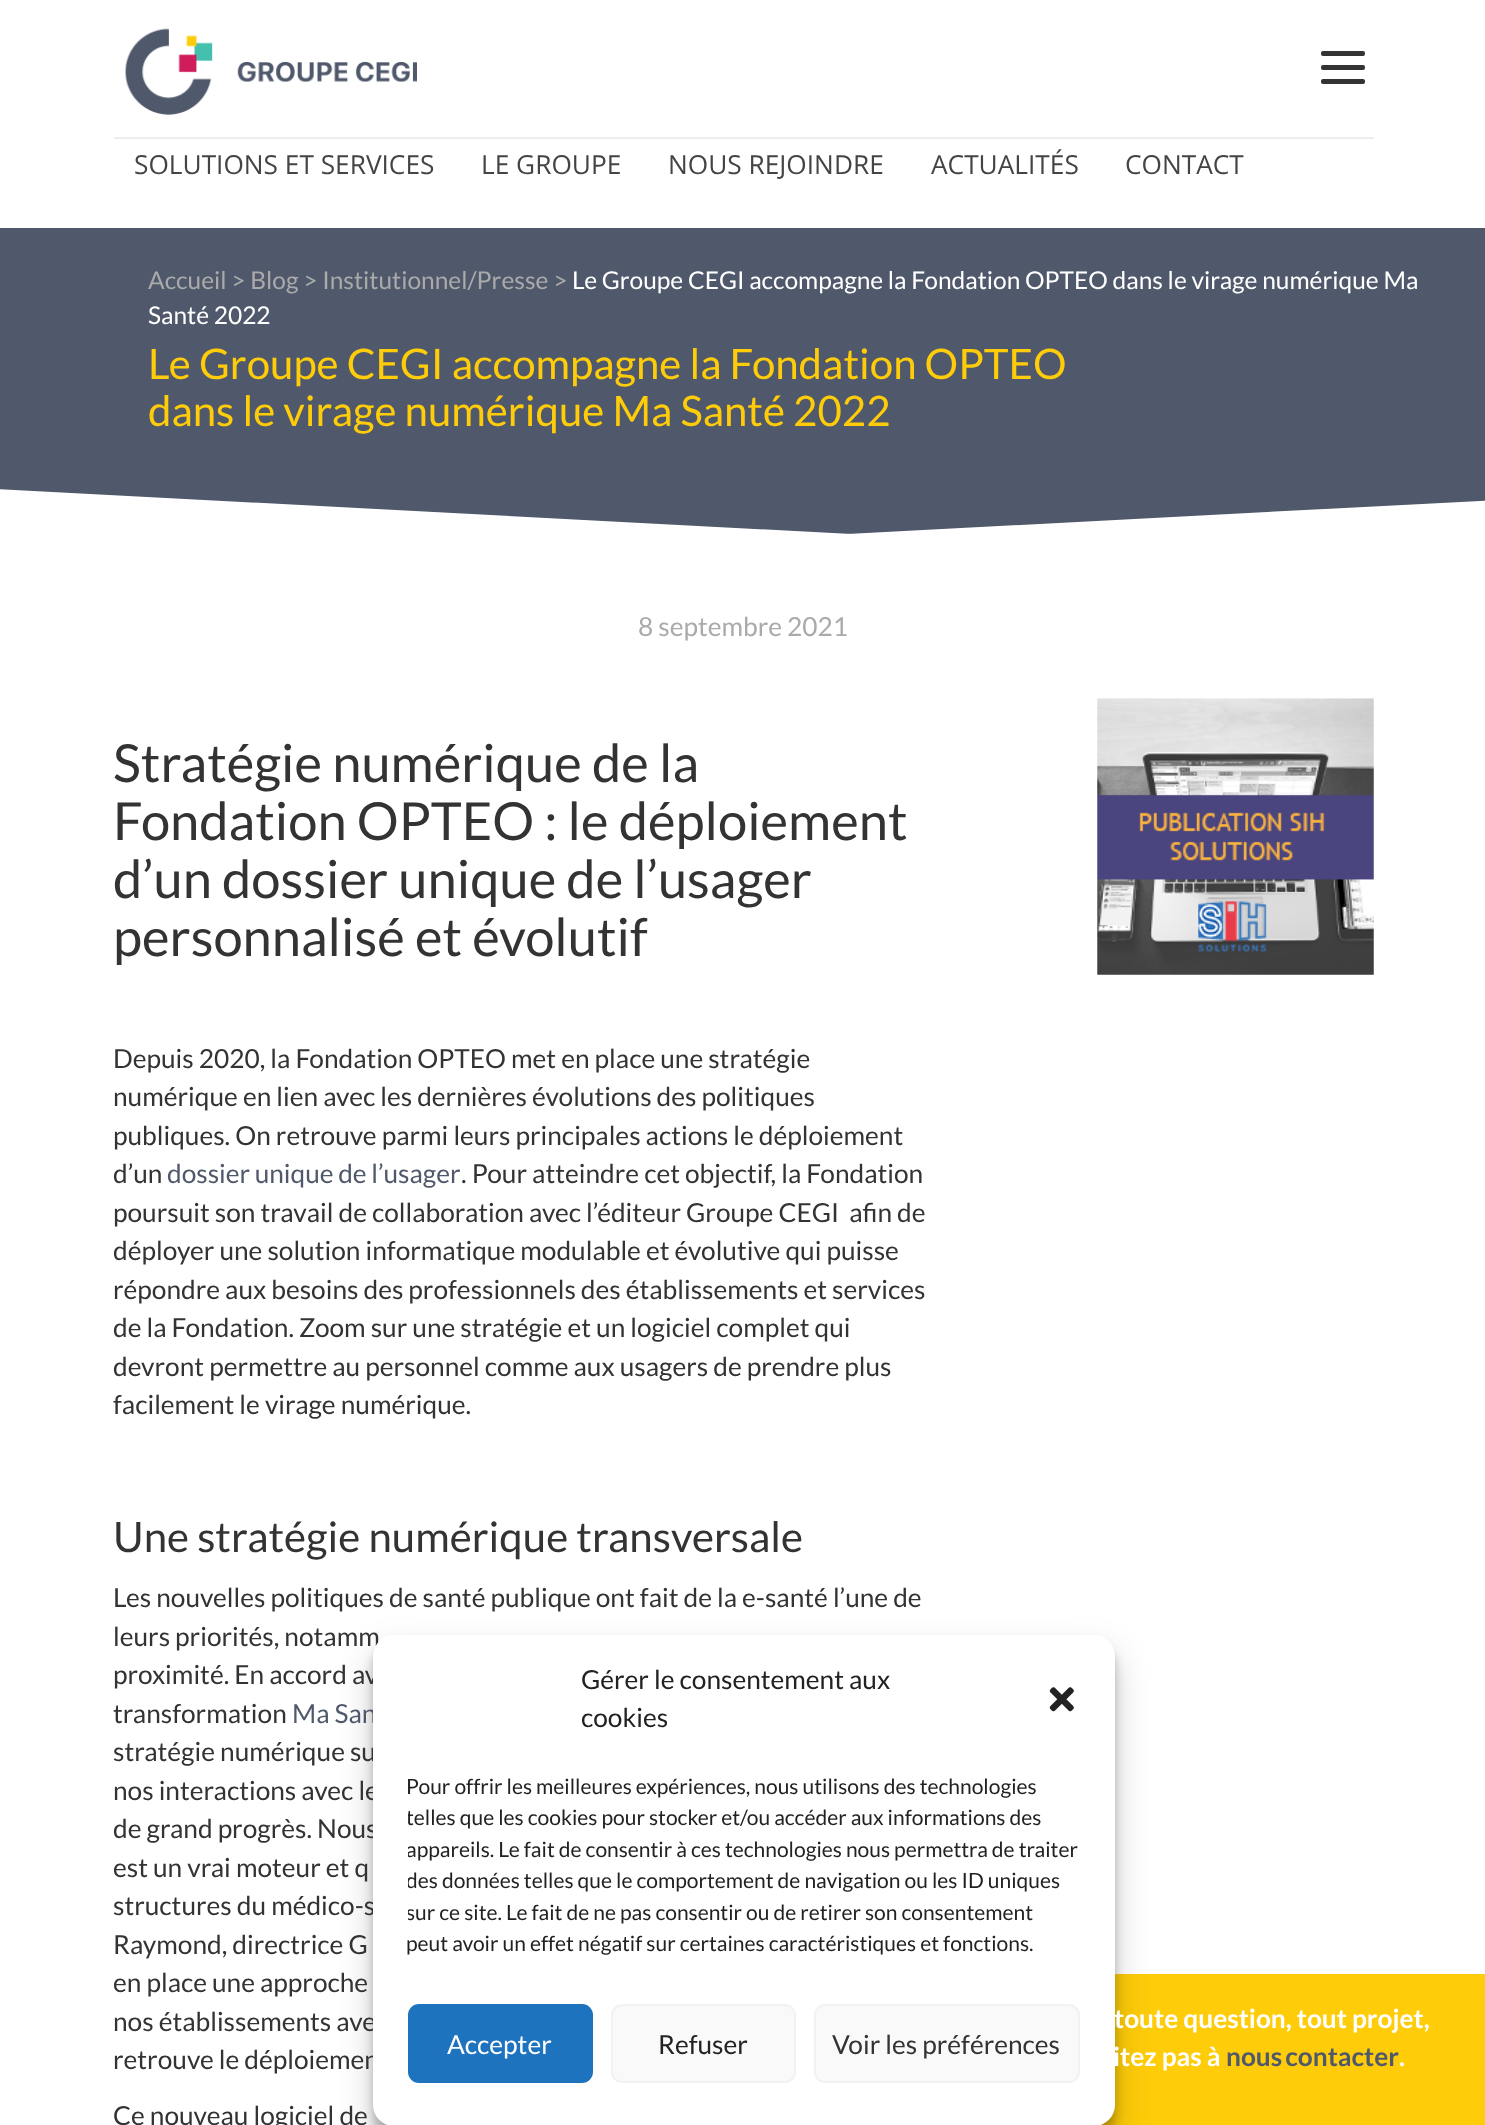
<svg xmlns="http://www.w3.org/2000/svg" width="1485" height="2125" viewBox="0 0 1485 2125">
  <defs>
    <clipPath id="clip1"><path d="M0 228h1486v311H0z"/></clipPath>
    <clipPath id="clip2"><path d="M408 1771h672v198H408z"/></clipPath>
  </defs>
  <rect width="100%" height="100%" fill="#fff"/>
  <image x="125" y="28" width="292" height="87" href="img/1.png"/>
  <rect x="1321" y="65" width="44" height="5" rx="2" fill="#333"/>
  <rect x="1321" y="51" width="44" height="5" rx="2" fill="#333"/>
  <rect x="1321" y="79" width="44" height="5" rx="2" fill="#333"/>
  <path d="M114 137h1260v2H114z" fill="#eee"/>
  <path d="M0 228h1485v306H0z" fill="#50596b"/>
  <g clip-path="url(#clip1)">
    <path d="M-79 485L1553 571L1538 850L-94 765Z" fill="#fff"/>
    <path d="M406 557L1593 495L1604 705L417 767Z" fill="#fff"/>
  </g>
  <image x="1097" y="698" width="277" height="277" href="img/2.png"/>
  <path d="M1100 1974h385v151H1100z" fill="#fecc09"/>
  <rect x="373" y="1645" width="742" height="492" rx="21" fill="#0000003b" filter="blur(5px)"/>
  <rect x="373" y="1652" width="742" height="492" rx="21" fill="#00000030" filter="blur(17.5px)"/>
  <g font-family="Open Sans" font-size="26.25" fill="#444">
    <text x="134" y="174">SOLUTIONS ET SERVICES</text>
    <text x="481" y="174">LE GROUPE</text>
    <text x="668" y="174">NOUS REJOINDRE</text>
    <text x="931" y="174">ACTUALITÉS</text>
    <text x="1125" y="174">CONTACT</text>
  </g>
  <text x="148" y="289" font-family="Lato" font-size="24.5" fill="#aaa">Accueil &gt; Blog &gt; Institutionnel/Presse &gt;</text>
  <g font-family="Lato" font-size="24.5" fill="#fff">
    <text x="572" y="289">Le Groupe CEGI accompagne la Fondation OPTEO dans le virage numérique Ma</text>
    <text x="148" y="324">Santé 2022</text>
  </g>
  <g font-family="Lato" font-size="42" fill="#fecc09">
    <text x="148" y="379">Le Groupe CEGI accompagne la Fondation OPTEO</text>
    <text x="148" y="426">dans le virage numérique Ma Santé 2022</text>
  </g>
  <text x="638" y="636" font-family="Lato" font-size="26.25" fill="#aaa">8 septembre 2021</text>
  <g font-family="Lato" font-size="52.5" fill="#333">
    <text x="113" y="782">Stratégie numérique de la</text>
    <text x="113" y="840">Fondation OPTEO : le déploiement</text>
    <text x="113" y="898">d’un dossier unique de l’usager</text>
    <text x="113" y="956">personnalisé et évolutif</text>
  </g>
  <g font-family="Lato" font-size="26.25" fill="#333">
    <text x="113" y="1068">Depuis 2020, la Fondation OPTEO met en place une stratégie</text>
    <text x="113" y="1106">numérique en lien avec les dernières évolutions des politiques</text>
    <text x="113" y="1145">publiques. On retrouve parmi leurs principales actions le déploiement</text>
    <text x="113" y="1183">d’un</text>
  </g>
  <text x="167" y="1183" word-spacing="-0.5" font-family="Lato" font-size="26.25" fill="#50596b">dossier unique de l’usager</text>
  <g font-family="Lato" font-size="26.25" fill="#333">
    <text x="461" y="1183">. Pour atteindre cet objectif, la Fondation</text>
    <text x="113" y="1222" xml:space="preserve">poursuit son travail de collaboration avec l’éditeur Groupe CEGI  afin de</text>
    <text x="113" y="1260">déployer une solution informatique modulable et évolutive qui puisse</text>
    <text x="113" y="1299">répondre aux besoins des professionnels des établissements et services</text>
    <text x="113" y="1337">de la Fondation. Zoom sur une stratégie et un logiciel complet qui</text>
    <text x="113" y="1376">devront permettre au personnel comme aux usagers de prendre plus</text>
    <text x="113" y="1414">facilement le virage numérique.</text>
  </g>
  <text x="113" y="1552" font-family="Lato" font-size="42" fill="#333">Une stratégie numérique transversale</text>
  <g font-family="Lato" font-size="26.25" fill="#333">
    <text x="113" y="1607">Les nouvelles politiques de santé publique ont fait de la e-santé l’une de</text>
    <text x="113" y="1646">leurs priorités, notamm</text>
    <text x="113" y="1684">proximité. En accord av</text>
    <text x="113" y="1723">transformation</text>
  </g>
  <text x="292" y="1723" font-family="Lato" font-size="26.25" fill="#50596b">Ma San</text>
  <g font-family="Lato" font-size="26.25" fill="#333">
    <text x="113" y="1761">stratégie numérique su</text>
    <text x="113" y="1800">nos interactions avec le</text>
    <text x="113" y="1838">de grand progrès. Nous</text>
    <text x="113" y="1877">est un vrai moteur et q</text>
    <text x="113" y="1915">structures du médico-s</text>
    <text x="113" y="1954">Raymond, directrice G</text>
    <text x="113" y="1992">en place une approche</text>
    <text x="113" y="2031">nos établissements ave</text>
    <text x="113" y="2069">retrouve le déploiemen</text>
    <text x="113" y="2125">Ce nouveau logiciel de</text>
  </g>
  <rect x="373" y="1635" width="742" height="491" rx="21" fill="#fff"/>
  <g font-family="Lato" font-size="26.25" fill="#222">
    <text x="581" y="1689">Gérer le consentement aux</text>
    <text x="581" y="1727">cookies</text>
  </g>
  <image x="1049" y="1687" width="25" height="25" href="img/3.png"/>
  <text x="406" y="1794" font-family="Lato" font-size="21" fill="#222">Pour offrir les meilleures expériences, nous utilisons des technologies</text>
  <g clip-path="url(#clip2)">
    <g font-family="Lato" font-size="21" fill="#222">
      <text x="406" y="1825">telles que les cookies pour stocker et/ou accéder aux informations des</text>
      <text x="406" y="1857">appareils. Le fait de consentir à ces technologies nous permettra de traiter</text>
      <text x="406" y="1888">des données telles que le comportement de navigation ou les ID uniques</text>
      <text x="406" y="1920">sur ce site. Le fait de ne pas consentir ou de retirer son consentement</text>
    </g>
  </g>
  <text x="406" y="1951" font-family="Lato" font-size="21" fill="#222">peut avoir un effet négatif sur certaines caractéristiques et fonctions.</text>
  <rect x="409" y="2005" width="183" height="77" rx="10" fill="#1e73be" stroke="#1e73be" stroke-width="2"/>
  <text x="447" y="2054" font-family="Lato" font-size="26.25" fill="#fff">Accepter</text>
  <rect x="612" y="2005" width="183" height="77" rx="10" fill="#f9f9f9" stroke="#f2f2f2" stroke-width="2"/>
  <text x="658" y="2054" font-family="Lato" font-size="26.25" fill="#222">Refuser</text>
  <rect x="815" y="2005" width="264" height="77" rx="10" fill="#f9f9f9" stroke="#f2f2f2" stroke-width="2"/>
  <text x="832" y="2054" font-family="Lato" font-size="26.25" fill="#333">Voir les préférences</text>
  <g font-family="Lato" font-size="26.25" font-weight="bold" fill="#fff">
    <text x="1114" y="2028">toute question, tout projet,</text>
    <text x="1113" y="2066">itez pas à</text>
  </g>
  <text x="1226" y="2066" word-spacing="-2" font-family="Lato" font-size="26.25" font-weight="bold" fill="#50596b">nous contacter</text>
  <text x="1399" y="2066" font-family="Lato" font-size="26.25" font-weight="bold" fill="#fff">.</text>
</svg>
